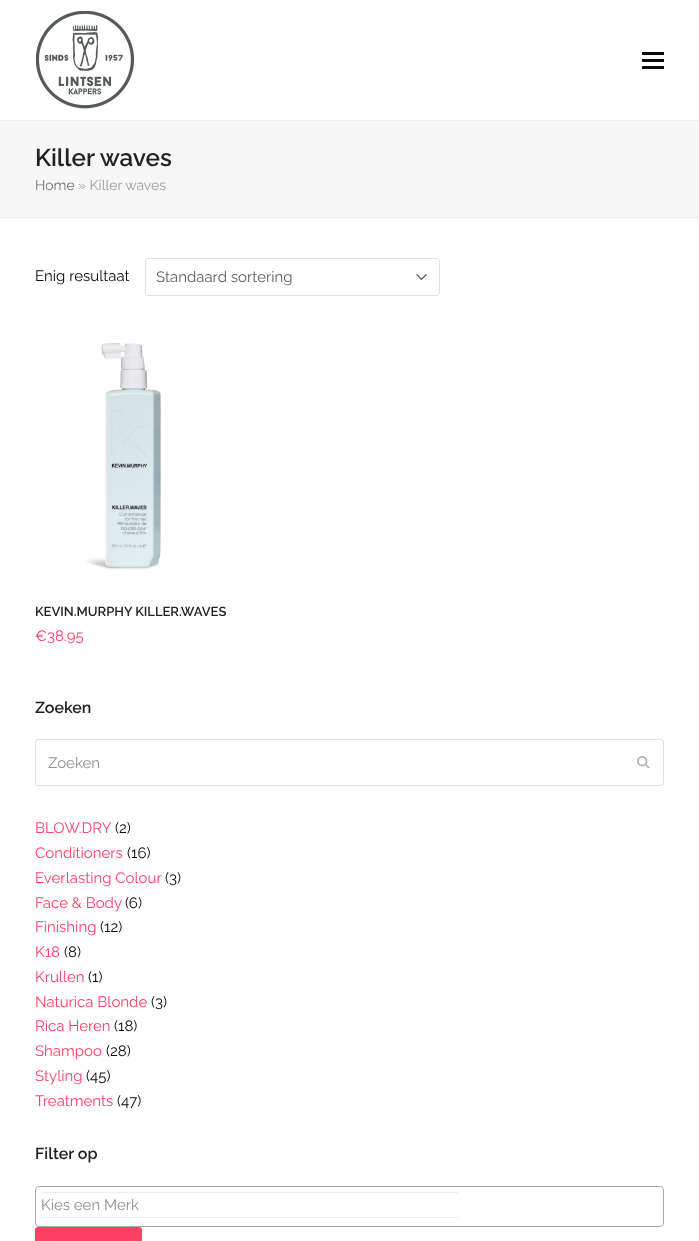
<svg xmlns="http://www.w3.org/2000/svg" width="699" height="1241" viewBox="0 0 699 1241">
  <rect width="100%" height="100%" fill="#fff"/>
  <image x="36" y="11" width="98" height="98" href="img/1.png"/>
  <path d="M642 59h22v3H642z" fill="#0a0a0a"/>
  <path d="M642 52h22v3H642z" fill="#0a0a0a"/>
  <path d="M642 66h22v3H642z" fill="#0a0a0a"/>
  <path d="M0 121h699v96H0z" fill="#f7f7f7"/>
  <path d="M0 120h699v1H0z" fill="#eee"/>
  <path d="M0 217h699v1H0z" fill="#eee"/>
  <rect x="145.5" y="258.5" width="294" height="37" rx="2.5" fill="none" stroke="#e0e0e0"/>
  <image x="416" y="274" width="11" height="7" href="img/2.png"/>
  <image x="85" y="343" width="76" height="227" href="img/3.png"/>
  <rect x="35.5" y="739.5" width="628" height="46" rx="2.5" fill="none" stroke="#e0e0e0"/>
  <image x="637" y="756" width="13" height="12" href="img/4.png"/>
  <rect x="35.5" y="1186.5" width="628" height="40" rx="3.5" fill="none" stroke="#aaa"/>
  <path d="M41 1192h417v1H41z" fill="#eee"/>
  <path d="M41 1217h417v1H41z" fill="#eee"/>
  <rect x="35" y="1227" width="107" height="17" rx="3" fill="#ff4064"/>
  <text x="35" y="166" font-family="Raleway" font-size="24.25" font-weight="600" fill="#222">Killer waves</text>
  <text x="35" y="190" font-family="Raleway" font-size="14" fill="#757575">Home</text>
  <text x="78" y="190" font-family="Raleway" font-size="14" fill="#9e9e9e">» Killer waves</text>
  <text x="35" y="281" font-family="Raleway" font-size="15" fill="#0a0a0a">Enig resultaat</text>
  <text x="156" y="282" font-family="Raleway" font-size="15" fill="#616161">Standaard sortering</text>
  <text x="35" y="616" font-family="Raleway" font-size="13" font-weight="600" fill="#222">KEVIN.MURPHY KILLER.WAVES</text>
  <text x="35" y="641" font-family="Raleway" font-size="15" fill="#ff4064">€38.95</text>
  <text x="35" y="713" font-family="Raleway" font-size="16" font-weight="600" fill="#222">Zoeken</text>
  <text x="48" y="768" font-family="Raleway" font-size="15" fill="#909090">Zoeken</text>
  <text x="35" y="833" font-family="Raleway" font-size="15" fill="#ff4064">BLOW.DRY</text>
  <text x="115" y="833" font-family="Raleway" font-size="15" fill="#0a0a0a">(2)</text>
  <text x="35" y="858" font-family="Raleway" font-size="15" fill="#ff4064">Conditioners</text>
  <text x="127" y="858" font-family="Raleway" font-size="15" fill="#0a0a0a">(16)</text>
  <text x="35" y="883" font-family="Raleway" font-size="15" fill="#ff4064">Everlasting Colour</text>
  <text x="165" y="883" font-family="Raleway" font-size="15" fill="#0a0a0a">(3)</text>
  <text x="35" y="908" font-family="Raleway" font-size="15" fill="#ff4064">Face &amp; Body</text>
  <text x="125" y="908" font-family="Raleway" font-size="15" fill="#0a0a0a">(6)</text>
  <text x="35" y="932" font-family="Raleway" font-size="15" fill="#ff4064">Finishing</text>
  <text x="100" y="932" font-family="Raleway" font-size="15" fill="#0a0a0a">(12)</text>
  <text x="35" y="957" font-family="Raleway" font-size="15" fill="#ff4064">K18</text>
  <text x="64" y="957" font-family="Raleway" font-size="15" fill="#0a0a0a">(8)</text>
  <text x="35" y="982" font-family="Raleway" font-size="15" fill="#ff4064">Krullen</text>
  <text x="88" y="982" font-family="Raleway" font-size="15" fill="#0a0a0a">(1)</text>
  <text x="35" y="1007" font-family="Raleway" font-size="15" fill="#ff4064">Naturica Blonde</text>
  <text x="151" y="1007" font-family="Raleway" font-size="15" fill="#0a0a0a">(3)</text>
  <text x="35" y="1031" font-family="Raleway" font-size="15" fill="#ff4064">Rica Heren</text>
  <text x="114" y="1031" font-family="Raleway" font-size="15" fill="#0a0a0a">(18)</text>
  <text x="35" y="1056" font-family="Raleway" font-size="15" fill="#ff4064">Shampoo</text>
  <text x="106" y="1056" font-family="Raleway" font-size="15" fill="#0a0a0a">(28)</text>
  <text x="35" y="1081" font-family="Raleway" font-size="15" fill="#ff4064">Styling</text>
  <text x="86" y="1081" font-family="Raleway" font-size="15" fill="#0a0a0a">(45)</text>
  <text x="35" y="1106" font-family="Raleway" font-size="15" fill="#ff4064">Treatments</text>
  <text x="117" y="1106" font-family="Raleway" font-size="15" fill="#0a0a0a">(47)</text>
  <text x="35" y="1159" font-family="Raleway" font-size="16" font-weight="600" fill="#222">Filter op</text>
  <text x="41" y="1210" font-family="Raleway" font-size="15" fill="#909090">Kies een Merk</text>
</svg>
